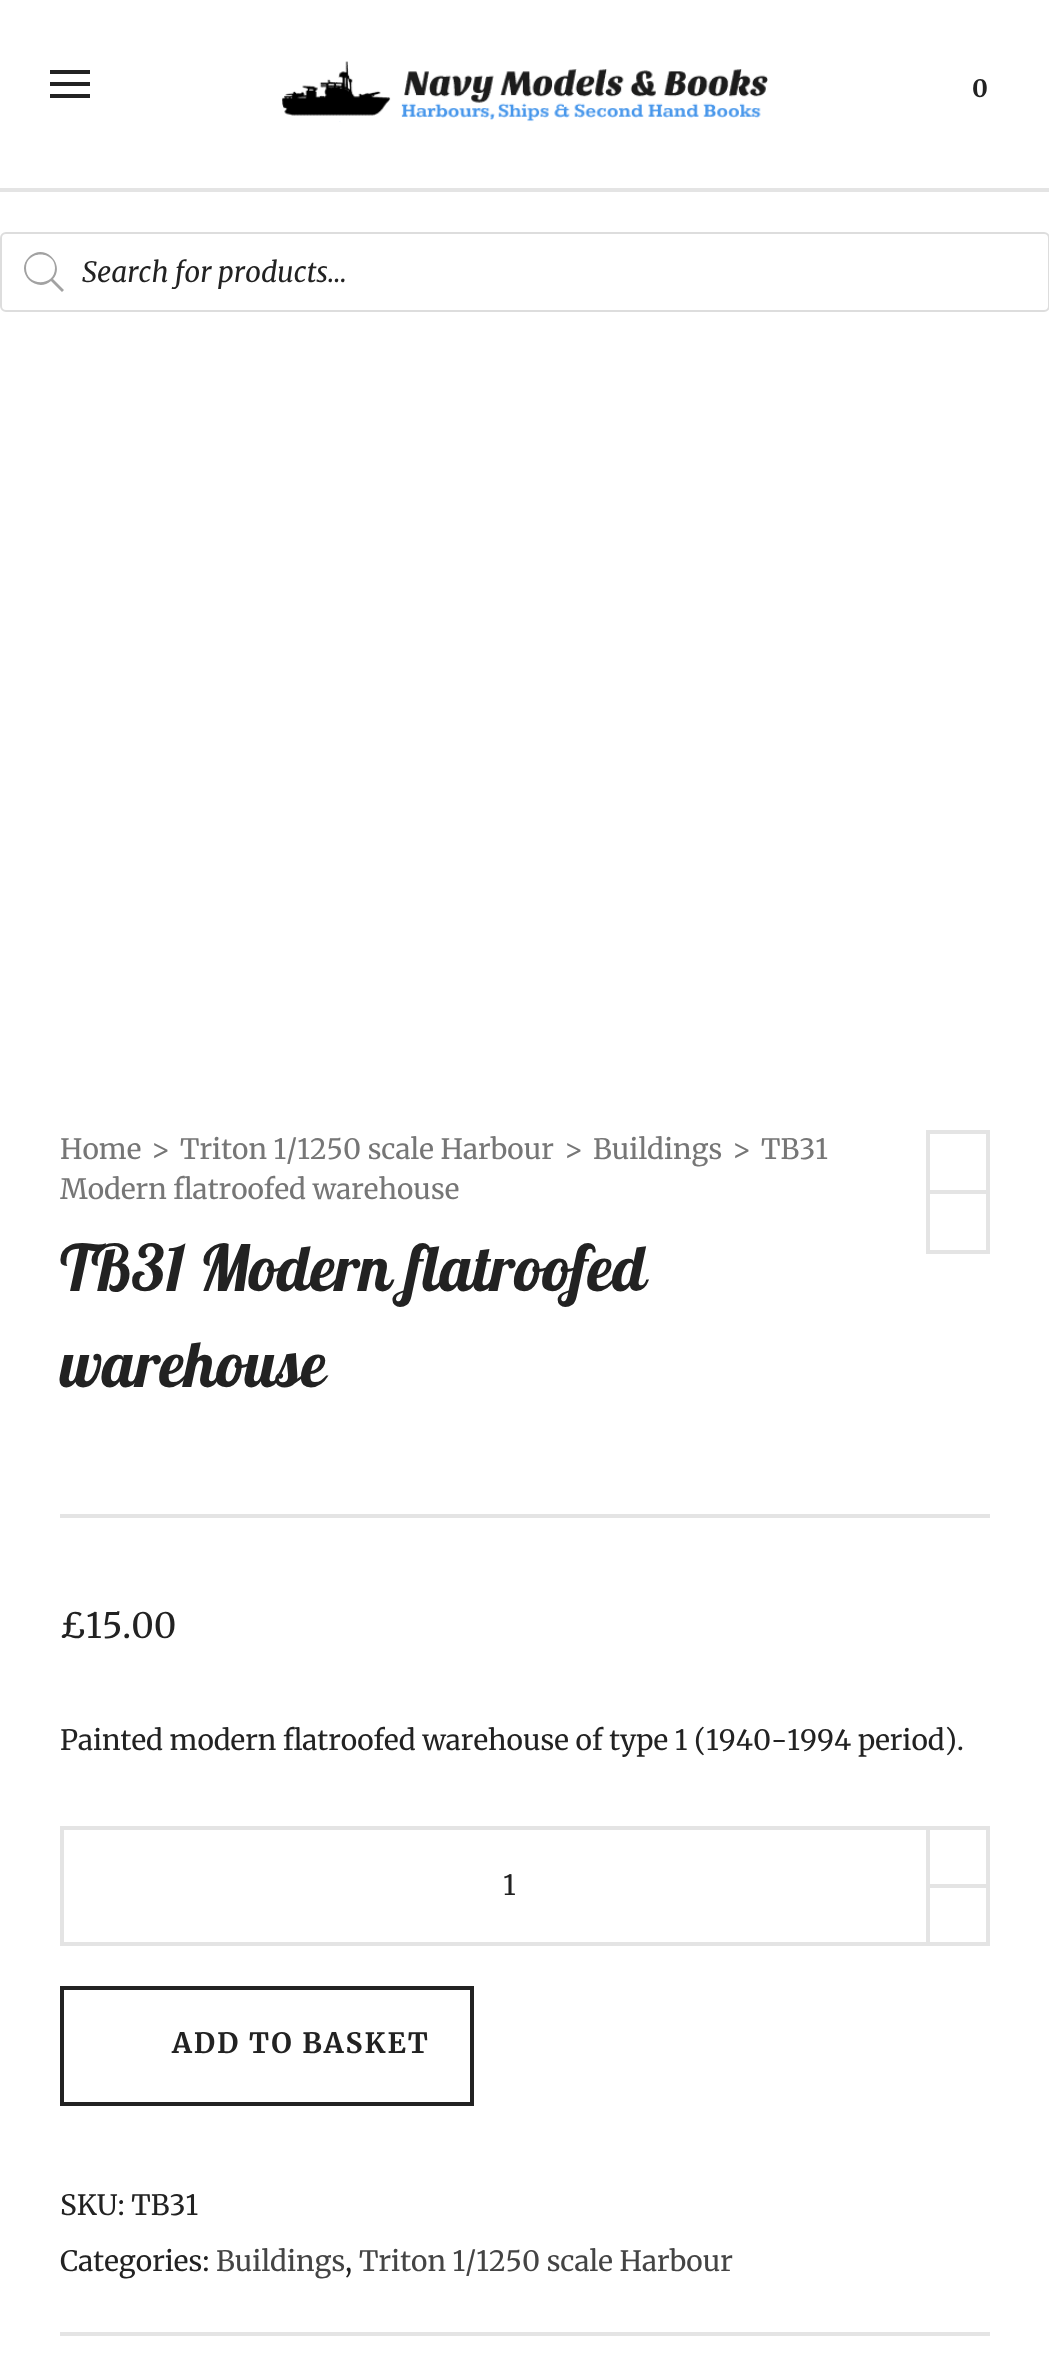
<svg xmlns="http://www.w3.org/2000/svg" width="1049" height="2379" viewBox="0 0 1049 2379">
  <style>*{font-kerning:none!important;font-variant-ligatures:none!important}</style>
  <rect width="100%" height="100%" fill="#fff"/>
  <path d="M0 188h1049v4H0z" fill="#e4e4e4"/>
  <path d="M50 82h40v4H50z" fill="#222"/>
  <path d="M50 70h40v4H50z" fill="#222"/>
  <path d="M50 94h40v4H50z" fill="#222"/>
  <image x="282" y="61" width="486" height="61" href="img/1.png"/>
  <rect x="1" y="233" width="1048" height="78" rx="5" fill="none" stroke="#ddd" stroke-width="2"/>
  <path d="M64 290L53 279C66 264 44 242 29 257C14 272 36 294 51 281L62 292ZM26 268C26 250 55 250 55 268C55 287 26 287 26 268Z" fill="#a2a2a2"/>
  <path d="M60 1514h930v4H60z" fill="#e4e4e4"/>
  <path d="M928 1132h60v60H928z" fill="none" stroke="#e4e4e4" stroke-width="4"/>
  <path d="M928 1192h60v60H928z" fill="none" stroke="#e4e4e4" stroke-width="4"/>
  <path d="M62 1828h926v116H62z" fill="none" stroke="#e4e4e4" stroke-width="4"/>
  <path d="M926 1826h4v120H926z" fill="#e4e4e4"/>
  <path d="M930 1884h60v4H930z" fill="#e4e4e4"/>
  <path d="M62 1988h410v116H62z" fill="none" stroke="#222" stroke-width="4"/>
  <path d="M60 2332h930v4H60z" fill="#e4e4e4"/>
  <text x="972" y="97" font-family="Merriweather" font-size="24" font-weight="bold" fill="#222">0</text>
  <text x="82" y="282" font-family="Merriweather" font-size="28" font-style="italic" fill="#222">Search for products...</text>
  <g font-family="Merriweather" font-size="28" fill="#767676">
    <text x="60" y="1159">Home</text>
    <text x="151" y="1159">&gt;</text>
    <text x="180" y="1159">Triton 1/1250 scale Harbour</text>
    <text x="564" y="1159">&gt;</text>
    <text x="593" y="1159">Buildings</text>
    <text x="732" y="1159">&gt;</text>
    <text x="761" y="1159">TB31</text>
    <text x="60" y="1199">Modern flatroofed warehouse</text>
  </g>
  <g font-family="Lobster" font-size="64" fill="#222">
    <text x="60" y="1291">TB31 Modern flatroofed</text>
    <text x="60" y="1387">warehouse</text>
  </g>
  <text x="60" y="1638" font-family="Merriweather" font-size="35" fill="#222">£15.00</text>
  <g font-family="Merriweather" font-size="28" fill="#222">
    <text x="60" y="1750">Painted modern flatroofed warehouse of type 1 (1940-1994</text>
    <text x="858" y="1750">period).</text>
    <text x="503" y="1895">1</text>
  </g>
  <text x="172" y="2053" font-family="Merriweather" font-size="28" font-weight="bold" letter-spacing="2" fill="#222">ADD TO BASKET</text>
  <g font-family="Merriweather" font-size="28" fill="#222">
    <text x="60" y="2215">SKU: TB31</text>
    <text x="60" y="2271">Categories:</text>
  </g>
  <text x="216" y="2271" font-family="Merriweather" font-size="28" fill="#444">Buildings</text>
  <text x="345" y="2271" font-family="Merriweather" font-size="28" fill="#222">,</text>
  <text x="359" y="2271" font-family="Merriweather" font-size="28" fill="#444">Triton 1/1250 scale Harbour</text>
</svg>
